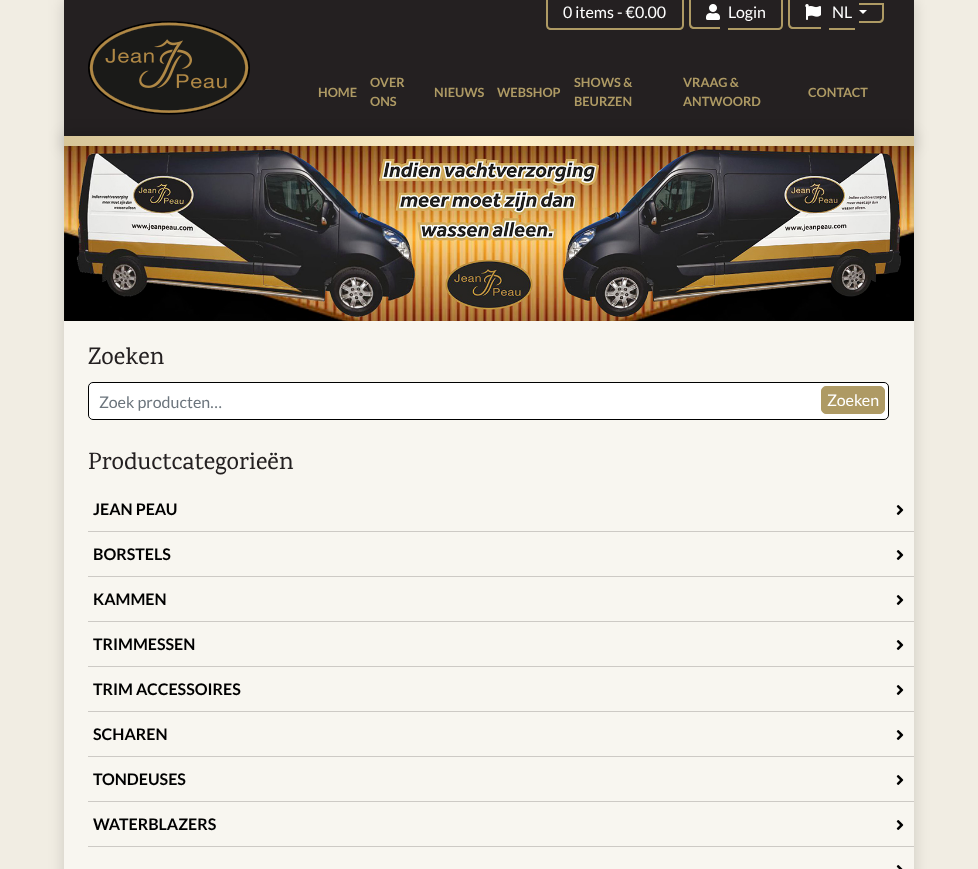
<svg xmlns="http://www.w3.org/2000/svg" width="978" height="869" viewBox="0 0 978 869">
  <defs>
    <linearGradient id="g1" gradientUnits="userSpaceOnUse" x1="667" y1="-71" x2="311" y2="353"><stop offset="0" stop-color="#d7c598"/><stop offset="0.5" stop-color="#feefcb"/><stop offset="1" stop-color="#d7c598"/></linearGradient>
  </defs>
  <rect width="100%" height="100%" fill="#f1ede3"/>
  <path d="M64 0h850v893H64z" fill="#00000026" filter="blur(8px)"/>
  <path d="M64 0h850v136H64z" fill="#242021"/>
  <path d="M546-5H617V30H551C548 30 546 28 546 25ZM548-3H617V28H551C549 28 548 27 548 25Z" fill="#ae9a64" fill-rule="evenodd"/>
  <path d="M617 28h18v2H617z" fill="#ae9a64"/>
  <path d="M635-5H684V25C684 28 682 30 679 30H635ZM635-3H682V25C682 27 681 28 679 28H635Z" fill="#ae9a64" fill-rule="evenodd"/>
  <path d="M689-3H720V29H694C691 29 689 27 689 24ZM691-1H720V27H694C692.5 27 691 25.5 691 24Z" fill="#ae9a64" fill-rule="evenodd"/>
  <path d="M728-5H783V25C783 28 781 30 778 30H728ZM728-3H781V25C781 27 780 28 778 28H728Z" fill="#ae9a64" fill-rule="evenodd"/>
  <image x="706" y="4" width="14" height="16" href="img/1.png"/>
  <path d="M788-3H821V29H793C790 29 788 27 788 24ZM790-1H821V27H793C791.5 27 790 25.5 790 24Z" fill="#ae9a64" fill-rule="evenodd"/>
  <path d="M829 28h26v2H829z" fill="#ae9a64"/>
  <path d="M859 3H884V18C884 21 882 23 879 23H859ZM859 5H882V18C882 19.5 880.5 21 879 21H859Z" fill="#ae9a64" fill-rule="evenodd"/>
  <image x="805" y="4" width="16" height="16" href="img/2.png"/>
  <path d="M859 10H867L863 14Z" fill="#fff"/>
  <path d="M64 136h850v10H64z" fill="#00000040" filter="blur(8px)"/>
  <image x="88" y="21" width="162" height="94" href="img/3.png"/>
  <path d="M64 136h850v10H64z" fill="url(#g1)"/>
  <image x="64" y="146" width="850" height="175" href="img/4.png"/>
  <path d="M64 321h850v548H64z" fill="#f8f6f0"/>
  <rect x="88.5" y="382.5" width="800" height="37" rx="4.5" fill="#fff" stroke="#000"/>
  <rect x="821.5" y="386.5" width="63" height="27" rx="4.5" fill="#ae9a64" stroke="#ae9a64"/>
  <path d="M88 531h826v1H88z" fill="#cdcac5"/>
  <image x="896" y="505" width="8" height="10" href="img/5.png"/>
  <path d="M88 576h826v1H88z" fill="#cdcac5"/>
  <image x="896" y="550" width="8" height="10" href="img/5.png"/>
  <path d="M88 621h826v1H88z" fill="#cdcac5"/>
  <image x="896" y="595" width="8" height="10" href="img/5.png"/>
  <path d="M88 666h826v1H88z" fill="#cdcac5"/>
  <image x="896" y="640" width="8" height="10" href="img/5.png"/>
  <path d="M88 711h826v1H88z" fill="#cdcac5"/>
  <image x="896" y="685" width="8" height="10" href="img/5.png"/>
  <path d="M88 756h826v1H88z" fill="#cdcac5"/>
  <image x="896" y="730" width="8" height="10" href="img/5.png"/>
  <path d="M88 801h826v1H88z" fill="#cdcac5"/>
  <image x="896" y="775" width="8" height="10" href="img/5.png"/>
  <path d="M88 846h826v1H88z" fill="#cdcac5"/>
  <image x="896" y="820" width="8" height="10" href="img/5.png"/>
  <image x="896" y="865" width="7" height="4" href="img/6.png"/>
  <g font-family="Lato" font-size="16" fill="#fff">
    <text x="563" y="18">0 items - €0.00</text>
    <text x="728" y="18">Login</text>
    <text x="832" y="18">NL</text>
  </g>
  <g font-family="Lato" font-size="12.75" font-weight="bold" fill="#ae9a64">
    <text x="318" y="97">HOME</text>
    <text x="370" y="87">OVER</text>
    <text x="370" y="106">ONS</text>
    <text x="434" y="97">NIEUWS</text>
    <text x="497" y="97">WEBSHOP</text>
    <text x="574" y="87">SHOWS &amp;</text>
    <text x="574" y="106">BEURZEN</text>
    <text x="683" y="87">VRAAG &amp;</text>
    <text x="683" y="106">ANTWOORD</text>
    <text x="808" y="97">CONTACT</text>
  </g>
  <text x="88" y="364" font-family="Karma" font-size="24" font-weight="500" fill="#242021">Zoeken</text>
  <text x="99" y="408" font-family="Lato" font-size="16" fill="#6c757d">Zoek producten…</text>
  <text x="827" y="406" font-family="Lato" font-size="16" fill="#fff">Zoeken</text>
  <text x="88" y="469" font-family="Karma" font-size="24" font-weight="500" fill="#242021">Productcategorieën</text>
  <g font-family="Lato" font-size="16" font-weight="bold" fill="#000">
    <text x="93" y="515">JEAN PEAU</text>
    <text x="93" y="560">BORSTELS</text>
    <text x="93" y="605">KAMMEN</text>
    <text x="93" y="650">TRIMMESSEN</text>
    <text x="93" y="695">TRIM ACCESSOIRES</text>
    <text x="93" y="740">SCHAREN</text>
    <text x="93" y="785">TONDEUSES</text>
    <text x="93" y="830">WATERBLAZERS</text>
  </g>
</svg>
